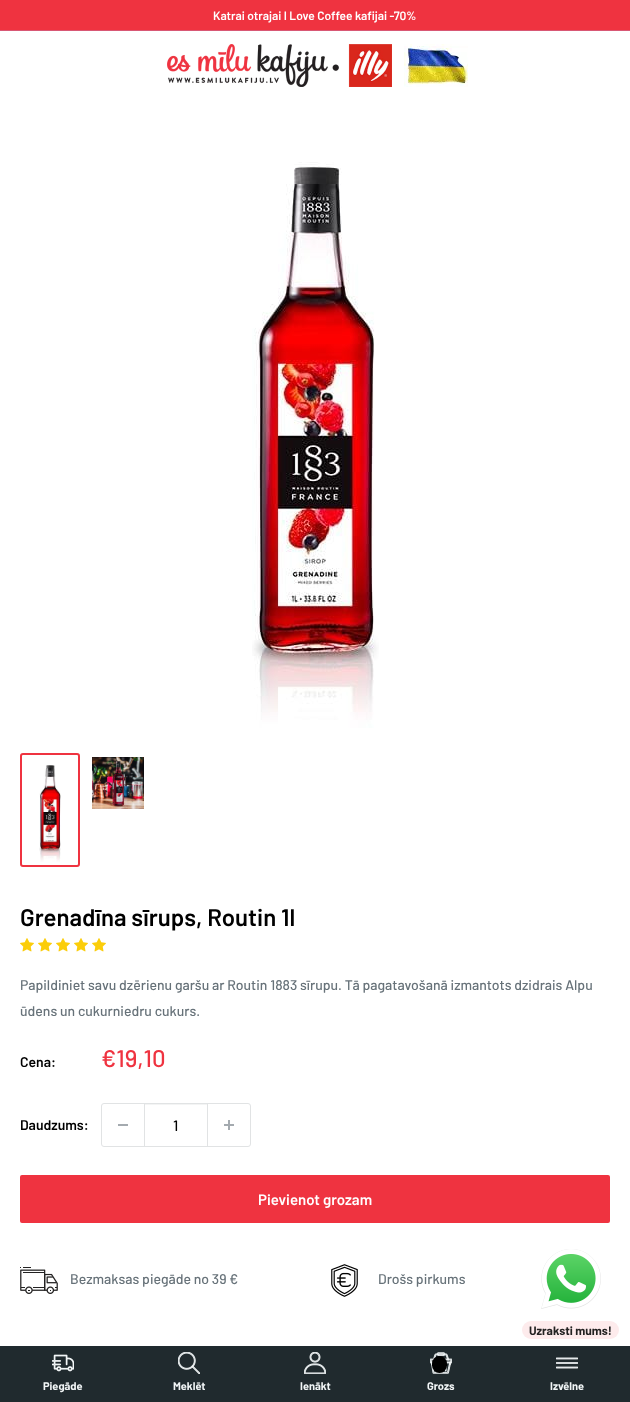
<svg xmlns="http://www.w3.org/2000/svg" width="630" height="1402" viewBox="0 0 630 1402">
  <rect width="100%" height="100%" fill="#ef3340"/>
  <path d="M0 30h630v1H0z" fill="#d85875"/>
  <path d="M0 31h630v1315H0z" fill="#fff"/>
  <image x="167" y="44" width="225" height="43" href="img/1.png"/>
  <image x="404" y="44" width="64" height="43" href="img/2.png"/>
  <image x="252" y="162" width="127" height="566" href="img/3.png"/>
  <rect x="21" y="754" width="58" height="112" rx="2" fill="none" stroke="#ef3340" stroke-width="2"/>
  <image x="39" y="765" width="22" height="97" href="img/4.png"/>
  <image x="92" y="757" width="52" height="52" href="img/5.png"/>
  <image x="20" y="938" width="14" height="14" href="img/6.png"/>
  <image x="38" y="938" width="14" height="14" href="img/6.png"/>
  <image x="56" y="938" width="14" height="14" href="img/6.png"/>
  <image x="74" y="938" width="14" height="14" href="img/6.png"/>
  <image x="92" y="938" width="14" height="14" href="img/6.png"/>
  <rect x="101.5" y="1103.5" width="149" height="43" rx="2.5" fill="none" stroke="#e1e3e4"/>
  <path d="M118 1124h10v2H118z" fill="#a4aaaf"/>
  <path d="M145 1104h62v1H145z" fill="#f3f4f4"/>
  <path d="M207 1104h1v42H207z" fill="#e1e3e4"/>
  <path d="M144 1104h1v42H144z" fill="#e1e3e4"/>
  <image x="224" y="1120" width="10" height="10" href="img/7.png"/>
  <rect x="20" y="1175" width="590" height="48" rx="2" fill="#ef3340"/>
  <image x="20" y="1267" width="38" height="27" href="img/8.png"/>
  <image x="331" y="1264" width="27" height="33" href="img/9.png"/>
  <image x="541" y="1249" width="60" height="60" href="img/10.png"/>
  <rect x="522" y="1321" width="97" height="18" rx="9" fill="#fdebec"/>
  <path d="M0 1346h630v56H0z" fill="#202a2e"/>
  <image x="52" y="1354" width="22" height="18" href="img/11.png"/>
  <image x="178" y="1352" width="22" height="22" href="img/12.png"/>
  <image x="304" y="1352" width="22" height="22" href="img/13.png"/>
  <image x="430" y="1352" width="22" height="22" href="img/14.png"/>
  <rect x="432" y="1356" width="15" height="17" rx="7.5" fill="#000"/>
  <image x="556" y="1357" width="22" height="12" href="img/15.png"/>
  <text x="213" y="20" font-family="Barlow" font-size="12" font-weight="600" fill="#fff">Katrai otrajai I Love Coffee kafijai -70%</text>
  <text x="20" y="926" font-family="Barlow" font-size="24" font-weight="600" fill="#000">Grenadīna sīrups, Routin 1l</text>
  <g font-family="Barlow" font-size="14" font-weight="500" fill="#677279">
    <text x="20" y="990">Papildiniet savu dzērienu garšu ar Routin 1883 sīrupu. Tā pagatavošanā izmantots dzidrais Alpu</text>
    <text x="20" y="1016">ūdens un cukurniedru cukurs.</text>
  </g>
  <text x="20" y="1067" font-family="Barlow" font-size="14" font-weight="600" fill="#000">Cena:</text>
  <text x="101" y="1067" font-family="Barlow" font-size="24" font-weight="500" fill="#ef3340">€19,10</text>
  <text x="20" y="1130" font-family="Barlow" font-size="14" font-weight="600" fill="#000">Daudzums:</text>
  <text x="173" y="1131" font-family="Barlow" font-size="15" font-weight="500" fill="#000">1</text>
  <text x="258" y="1205" font-family="Barlow" font-size="15" font-weight="600" fill="#fff">Pievienot grozam</text>
  <g font-family="Barlow" font-size="14" font-weight="500" fill="#677279">
    <text x="70" y="1284">Bezmaksas piegāde no 39 €</text>
    <text x="378" y="1284">Drošs pirkums</text>
  </g>
  <text x="529" y="1335" font-family="Barlow" font-size="12" font-weight="bold" fill="#232222">Uzraksti mums!</text>
  <g font-family="Barlow" font-size="11" font-weight="bold" fill="#f2f6f7">
    <text x="43" y="1390">Piegāde</text>
    <text x="173" y="1390">Meklēt</text>
    <text x="300" y="1390">Ienākt</text>
    <text x="427" y="1390">Grozs</text>
    <text x="550" y="1390">Izvēlne</text>
  </g>
</svg>
